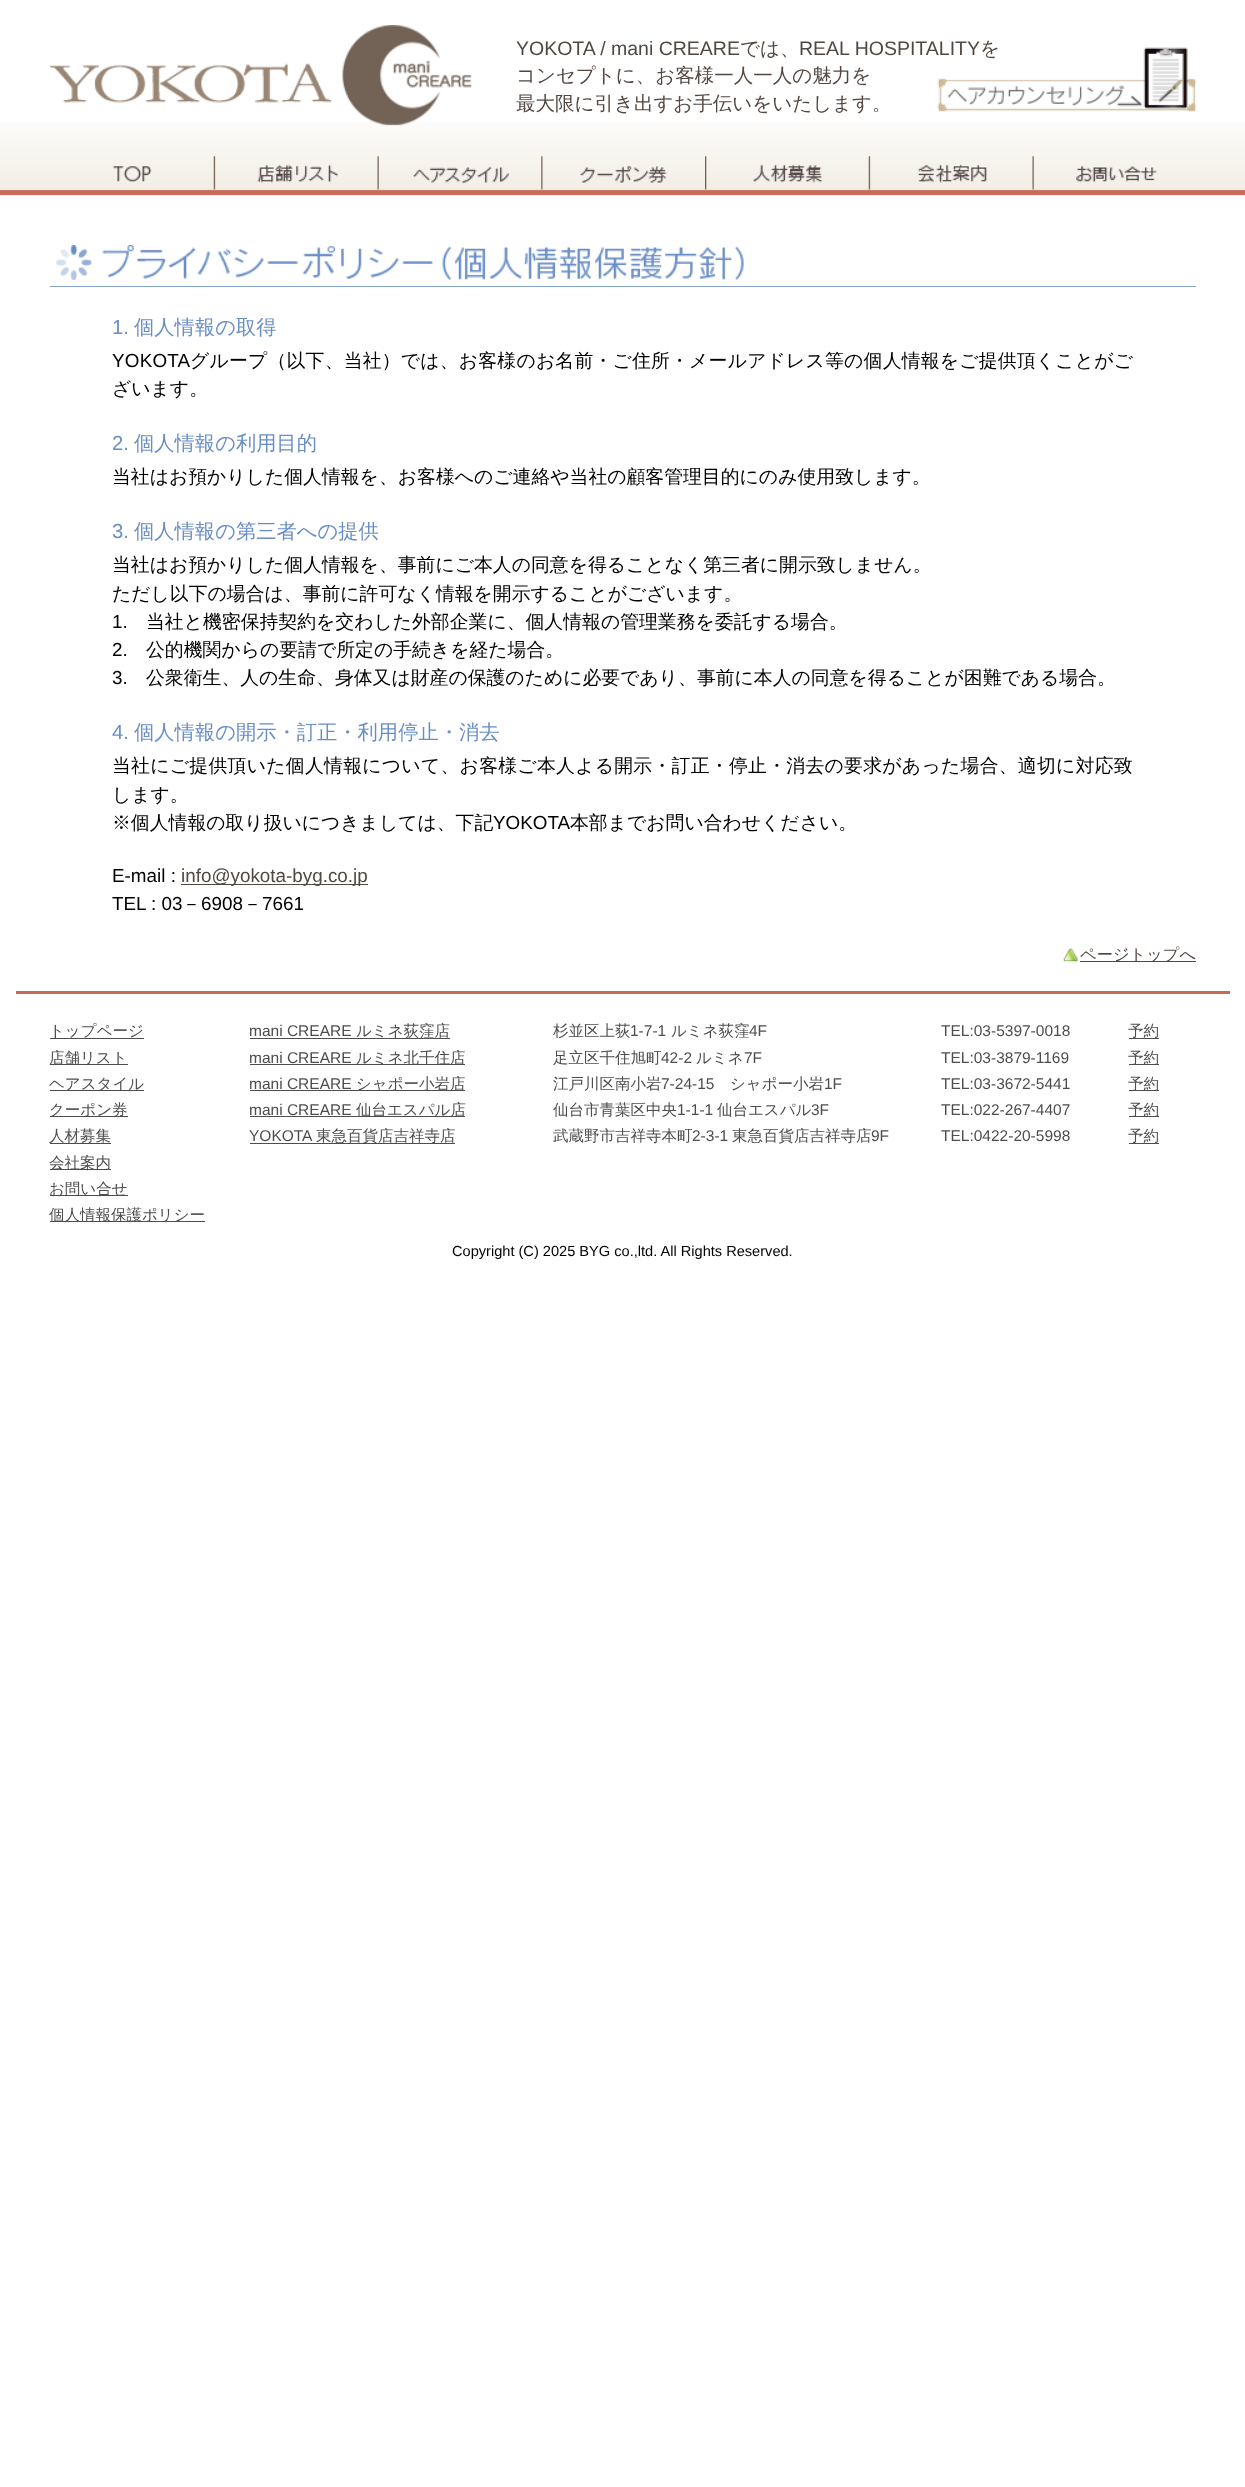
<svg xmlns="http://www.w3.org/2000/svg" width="1245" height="2487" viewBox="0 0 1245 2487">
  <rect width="100%" height="100%" fill="#fff"/>
  <image x="0" y="121" width="1245" height="75" href="img/1.png"/>
  <image x="50" y="25" width="422" height="101" href="img/2.png"/>
  <image x="112" y="166" width="40" height="16" href="img/4.png"/>
  <image x="213" y="156" width="126" height="34" href="img/5.png"/>
  <image x="377" y="156" width="132" height="34" href="img/6.png"/>
  <image x="541" y="156" width="126" height="34" href="img/7.png"/>
  <image x="705" y="156" width="118" height="34" href="img/8.png"/>
  <image x="868" y="156" width="119" height="34" href="img/9.png"/>
  <image x="1032" y="156" width="125" height="34" href="img/10.png"/>
  <path d="M50 286h1146v1H50z" fill="#85a3d1"/>
  <image x="56" y="245" width="688" height="35" href="img/11.png"/>
  <path d="M181 884h187v1H181z" fill="#534741"/>
  <image x="1063" y="948" width="15" height="14" href="img/12.png"/>
  <path d="M1080 961h116v1H1080z" fill="#534741"/>
  <path d="M16 991h1214v3H16z" fill="#ca6855"/>
  <path d="M50 1038h94v1H50z" fill="#4d4d4d"/>
  <path d="M50 1064h78v1H50z" fill="#4d4d4d"/>
  <path d="M50 1090h94v1H50z" fill="#4d4d4d"/>
  <path d="M50 1116h78v1H50z" fill="#4d4d4d"/>
  <path d="M50 1143h61v1H50z" fill="#4d4d4d"/>
  <path d="M50 1169h61v1H50z" fill="#4d4d4d"/>
  <path d="M50 1195h78v1H50z" fill="#4d4d4d"/>
  <path d="M50 1221h155v1H50z" fill="#4d4d4d"/>
  <path d="M250 1038h200v1H250z" fill="#4d4d4d"/>
  <path d="M1129 1038h30v1H1129z" fill="#4d4d4d"/>
  <path d="M250 1064h215v1H250z" fill="#4d4d4d"/>
  <path d="M1129 1064h30v1H1129z" fill="#4d4d4d"/>
  <path d="M250 1090h215v1H250z" fill="#4d4d4d"/>
  <path d="M1129 1090h30v1H1129z" fill="#4d4d4d"/>
  <path d="M250 1116h215v1H250z" fill="#4d4d4d"/>
  <path d="M1129 1116h30v1H1129z" fill="#4d4d4d"/>
  <path d="M250 1143h205v1H250z" fill="#4d4d4d"/>
  <path d="M1129 1143h30v1H1129z" fill="#4d4d4d"/>
  <text x="516" y="55" font-family="Liberation Sans" font-size="19.5" fill="#534741">YOKOTA / mani CREARE</text>
  <text x="740" y="55" font-family="WenQuanYi Zen Hei" font-size="19.5" font-weight="500" fill="#534741">では、</text>
  <text x="799" y="55" font-family="Liberation Sans" font-size="19.5" fill="#534741">REAL HOSPITALITY</text>
  <g font-family="WenQuanYi Zen Hei" font-size="19.5" font-weight="500" fill="#534741">
    <text x="980" y="55">を</text>
    <text x="516" y="82">コンセプトに、お客様一人一人の魅力を</text>
    <text x="516" y="110">最大限に引き出すお手伝いをいたします。</text>
  </g>
  <image x="937" y="47" width="260" height="65" href="img/3.png"/>
  <text x="112" y="334" font-family="Liberation Sans" font-size="20.3" fill="#698ec6">1.</text>
  <text x="134" y="334" font-family="WenQuanYi Zen Hei" font-size="20.3" font-weight="500" fill="#698ec6">個人情報の取得</text>
  <text x="112" y="367" font-family="Liberation Sans" font-size="18.85" letter-spacing="0.2" fill="#000">YOKOTA</text>
  <text x="190" y="367" font-family="WenQuanYi Zen Hei" font-size="18.85" font-weight="500" letter-spacing="0.2" fill="#000">グループ（以下、当社）では、お客様のお名前・ご住所・メールアドレス等の個人情報をご提供頂くことがご</text>
  <text x="112" y="395" font-family="WenQuanYi Zen Hei" font-size="18.85" font-weight="500" fill="#000">ざいます。</text>
  <text x="112" y="450" font-family="Liberation Sans" font-size="20.3" fill="#698ec6">2.</text>
  <text x="134" y="450" font-family="WenQuanYi Zen Hei" font-size="20.3" font-weight="500" fill="#698ec6">個人情報の利用目的</text>
  <text x="112" y="483" font-family="WenQuanYi Zen Hei" font-size="18.85" font-weight="500" fill="#000">当社はお預かりした個人情報を、お客様へのご連絡や当社の顧客管理目的にのみ使用致します。</text>
  <text x="112" y="538" font-family="Liberation Sans" font-size="20.3" fill="#698ec6">3.</text>
  <text x="134" y="538" font-family="WenQuanYi Zen Hei" font-size="20.3" font-weight="500" fill="#698ec6">個人情報の第三者への提供</text>
  <g font-family="WenQuanYi Zen Hei" font-size="18.85" font-weight="500" fill="#000">
    <text x="112" y="571">当社はお預かりした個人情報を、事前にご本人の同意を得ることなく第三者に開示致しません。</text>
    <text x="112" y="600">ただし以下の場合は、事前に許可なく情報を開示することがございます。</text>
  </g>
  <text x="112" y="628" font-family="Liberation Sans" font-size="18.85" fill="#000">1.</text>
  <text x="146" y="628" font-family="WenQuanYi Zen Hei" font-size="18.85" font-weight="500" fill="#000">当社と機密保持契約を交わした外部企業に、個人情報の管理業務を委託する場合。</text>
  <text x="112" y="656" font-family="Liberation Sans" font-size="18.85" fill="#000">2.</text>
  <text x="146" y="656" font-family="WenQuanYi Zen Hei" font-size="18.85" font-weight="500" fill="#000">公的機関からの要請で所定の手続きを経た場合。</text>
  <text x="112" y="684" font-family="Liberation Sans" font-size="18.85" fill="#000">3.</text>
  <text x="146" y="684" font-family="WenQuanYi Zen Hei" font-size="18.85" font-weight="500" fill="#000">公衆衛生、人の生命、身体又は財産の保護のために必要であり、事前に本人の同意を得ることが困難である場合。</text>
  <text x="112" y="739" font-family="Liberation Sans" font-size="20.3" fill="#698ec6">4.</text>
  <text x="134" y="739" font-family="WenQuanYi Zen Hei" font-size="20.3" font-weight="500" fill="#698ec6">個人情報の開示・訂正・利用停止・消去</text>
  <text x="112" y="772" font-family="WenQuanYi Zen Hei" font-size="18.85" font-weight="500" letter-spacing="0.27" fill="#000">当社にご提供頂いた個人情報について、お客様ご本人よる開示・訂正・停止・消去の要求があった場合、適切に対応致</text>
  <g font-family="WenQuanYi Zen Hei" font-size="18.85" font-weight="500" fill="#000">
    <text x="112" y="801">します。</text>
    <text x="112" y="829">※個人情報の取り扱いにつきましては、下記</text>
  </g>
  <text x="493" y="829" font-family="Liberation Sans" font-size="18.85" fill="#000">YOKOTA</text>
  <text x="570" y="829" font-family="WenQuanYi Zen Hei" font-size="18.85" font-weight="500" fill="#000">本部までお問い合わせください。</text>
  <text x="112" y="882" font-family="Liberation Sans" font-size="18.85" fill="#000">E-mail :</text>
  <text x="181" y="882" font-family="Liberation Sans" font-size="18.85" fill="#534741">info@yokota-byg.co.jp</text>
  <text x="112" y="910" font-family="Liberation Sans" font-size="18.85" fill="#000">TEL : 03</text>
  <text x="182" y="910" font-family="WenQuanYi Zen Hei" font-size="18.85" font-weight="500" fill="#000">－</text>
  <text x="201" y="910" font-family="Liberation Sans" font-size="18.85" fill="#000">6908</text>
  <text x="243" y="910" font-family="WenQuanYi Zen Hei" font-size="18.85" font-weight="500" fill="#000">－</text>
  <text x="262" y="910" font-family="Liberation Sans" font-size="18.85" fill="#000">7661</text>
  <text x="1080" y="960" font-family="WenQuanYi Zen Hei" font-size="16.25" font-weight="500" fill="#534741">ページトップへ</text>
  <g font-family="WenQuanYi Zen Hei" font-size="15.5" font-weight="500" fill="#4d4d4d">
    <text x="49" y="1036">トップページ</text>
    <text x="49" y="1063">店舗リスト</text>
    <text x="49" y="1089">ヘアスタイル</text>
    <text x="49" y="1115">クーポン券</text>
    <text x="49" y="1141">人材募集</text>
    <text x="49" y="1168">会社案内</text>
    <text x="49" y="1194">お問い合せ</text>
    <text x="49" y="1220">個人情報保護ポリシー</text>
  </g>
  <text x="249" y="1036" font-family="Liberation Sans" font-size="15.5" fill="#4d4d4d">mani CREARE</text>
  <g font-family="WenQuanYi Zen Hei" font-size="15.5" font-weight="500" fill="#4d4d4d">
    <text x="356" y="1036">ルミネ荻窪店</text>
    <text x="553" y="1036">杉並区上荻</text>
  </g>
  <text x="630" y="1036" font-family="Liberation Sans" font-size="15.5" fill="#4d4d4d">1-7-1</text>
  <text x="671" y="1036" font-family="WenQuanYi Zen Hei" font-size="15.5" font-weight="500" fill="#4d4d4d">ルミネ荻窪</text>
  <g font-family="Liberation Sans" font-size="15.5" fill="#4d4d4d">
    <text x="749" y="1036">4F</text>
    <text x="941" y="1036">TEL:03-5397-0018</text>
  </g>
  <text x="1128" y="1036" font-family="WenQuanYi Zen Hei" font-size="15.5" font-weight="500" fill="#4d4d4d">予約</text>
  <text x="249" y="1063" font-family="Liberation Sans" font-size="15.5" fill="#4d4d4d">mani CREARE</text>
  <g font-family="WenQuanYi Zen Hei" font-size="15.5" font-weight="500" fill="#4d4d4d">
    <text x="356" y="1063">ルミネ北千住店</text>
    <text x="553" y="1063">足立区千住旭町</text>
  </g>
  <text x="661" y="1063" font-family="Liberation Sans" font-size="15.5" fill="#4d4d4d">42-2</text>
  <text x="696" y="1063" font-family="WenQuanYi Zen Hei" font-size="15.5" font-weight="500" fill="#4d4d4d">ルミネ</text>
  <g font-family="Liberation Sans" font-size="15.5" fill="#4d4d4d">
    <text x="744" y="1063">7F</text>
    <text x="941" y="1063">TEL:03-3879-1169</text>
  </g>
  <text x="1128" y="1063" font-family="WenQuanYi Zen Hei" font-size="15.5" font-weight="500" fill="#4d4d4d">予約</text>
  <text x="249" y="1089" font-family="Liberation Sans" font-size="15.5" fill="#4d4d4d">mani CREARE</text>
  <g font-family="WenQuanYi Zen Hei" font-size="15.5" font-weight="500" fill="#4d4d4d">
    <text x="356" y="1089">シャポー小岩店</text>
    <text x="553" y="1089">江戸川区南小岩</text>
  </g>
  <text x="661" y="1089" font-family="Liberation Sans" font-size="15.5" fill="#4d4d4d">7-24-15</text>
  <text x="730" y="1089" font-family="WenQuanYi Zen Hei" font-size="15.5" font-weight="500" fill="#4d4d4d">シャポー小岩</text>
  <g font-family="Liberation Sans" font-size="15.5" fill="#4d4d4d">
    <text x="824" y="1089">1F</text>
    <text x="941" y="1089">TEL:03-3672-5441</text>
  </g>
  <text x="1128" y="1089" font-family="WenQuanYi Zen Hei" font-size="15.5" font-weight="500" fill="#4d4d4d">予約</text>
  <text x="249" y="1115" font-family="Liberation Sans" font-size="15.5" fill="#4d4d4d">mani CREARE</text>
  <g font-family="WenQuanYi Zen Hei" font-size="15.5" font-weight="500" fill="#4d4d4d">
    <text x="356" y="1115">仙台エスパル店</text>
    <text x="553" y="1115">仙台市青葉区中央</text>
  </g>
  <text x="677" y="1115" font-family="Liberation Sans" font-size="15.5" fill="#4d4d4d">1-1-1</text>
  <text x="717" y="1115" font-family="WenQuanYi Zen Hei" font-size="15.5" font-weight="500" fill="#4d4d4d">仙台エスパル</text>
  <g font-family="Liberation Sans" font-size="15.5" fill="#4d4d4d">
    <text x="811" y="1115">3F</text>
    <text x="941" y="1115">TEL:022-267-4407</text>
  </g>
  <text x="1128" y="1115" font-family="WenQuanYi Zen Hei" font-size="15.5" font-weight="500" fill="#4d4d4d">予約</text>
  <text x="249" y="1141" font-family="Liberation Sans" font-size="15.5" fill="#4d4d4d">YOKOTA</text>
  <g font-family="WenQuanYi Zen Hei" font-size="15.5" font-weight="500" fill="#4d4d4d">
    <text x="316" y="1141">東急百貨店吉祥寺店</text>
    <text x="553" y="1141">武蔵野市吉祥寺本町</text>
  </g>
  <text x="692" y="1141" font-family="Liberation Sans" font-size="15.5" fill="#4d4d4d">2-3-1</text>
  <text x="732" y="1141" font-family="WenQuanYi Zen Hei" font-size="15.5" font-weight="500" fill="#4d4d4d">東急百貨店吉祥寺店</text>
  <g font-family="Liberation Sans" font-size="15.5" fill="#4d4d4d">
    <text x="871" y="1141">9F</text>
    <text x="941" y="1141">TEL:0422-20-5998</text>
  </g>
  <text x="1128" y="1141" font-family="WenQuanYi Zen Hei" font-size="15.5" font-weight="500" fill="#4d4d4d">予約</text>
  <text x="452" y="1256" font-family="Liberation Sans" font-size="14.6" fill="#000">Copyright (C) 2025 BYG co.,ltd. All Rights Reserved.</text>
</svg>
